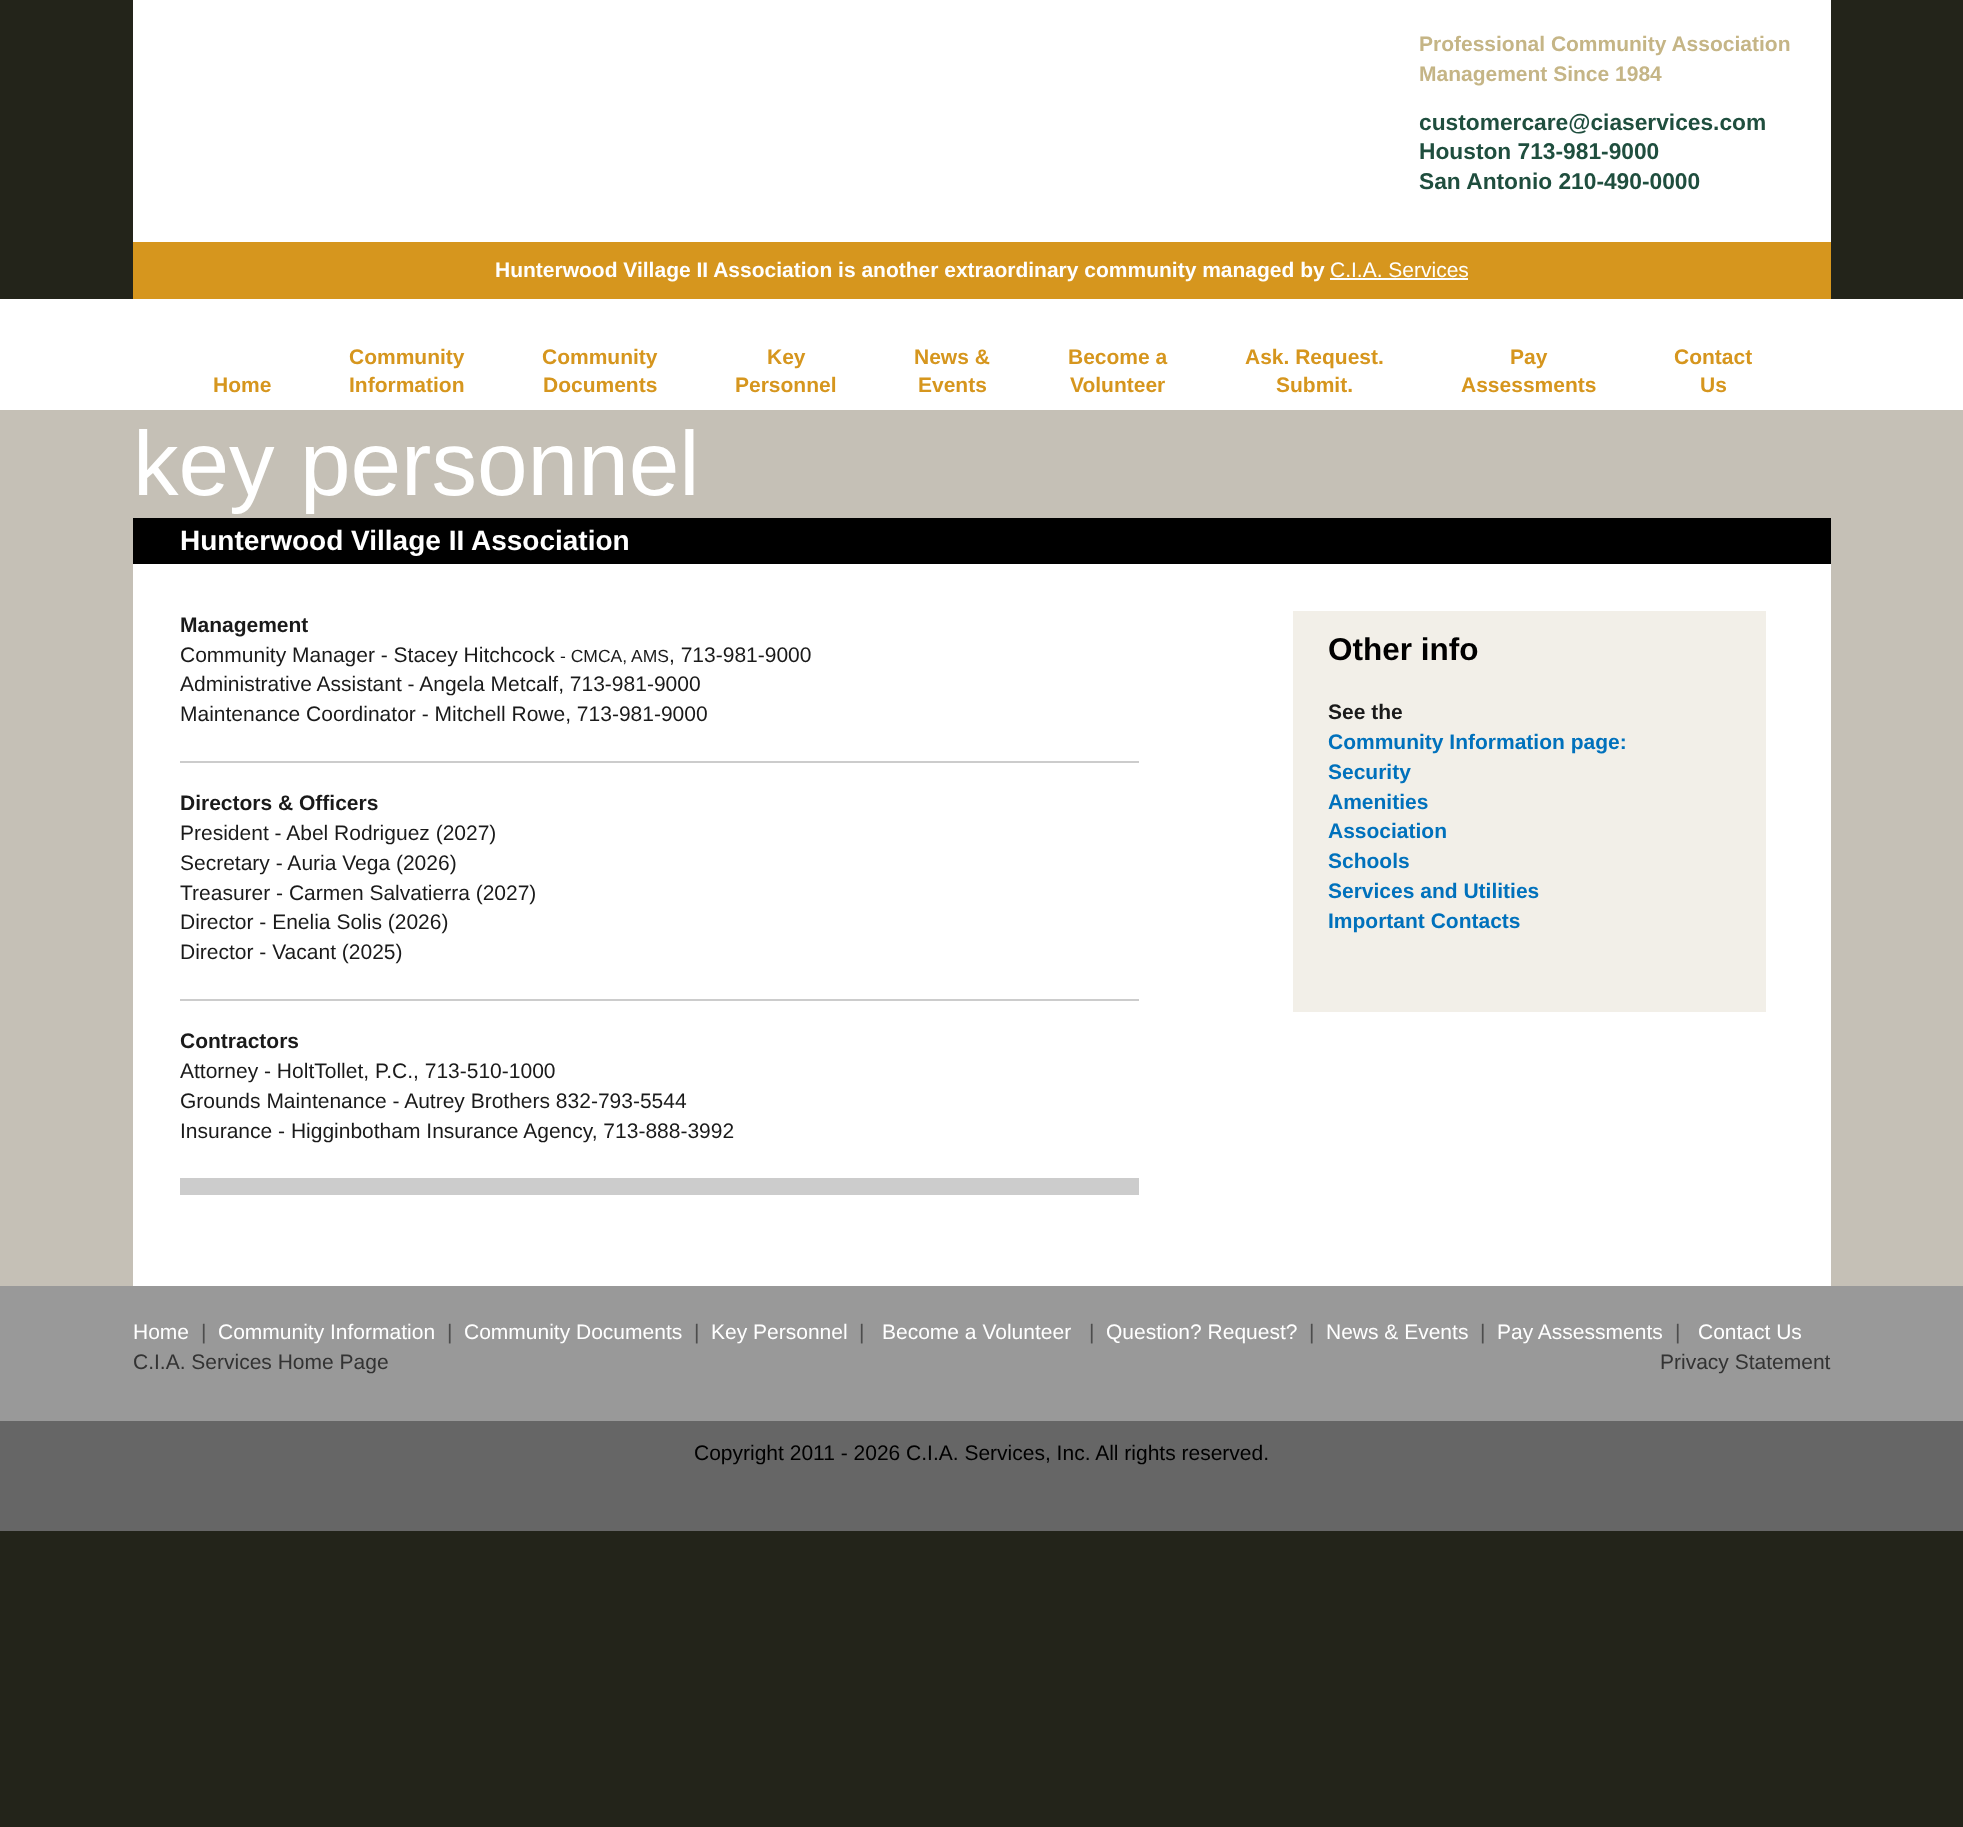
<svg xmlns="http://www.w3.org/2000/svg" width="1963" height="1827" viewBox="0 0 1963 1827">
  <rect width="100%" height="100%" fill="#23241a"/>
  <path d="M133 0h1698v242H133z" fill="#fff"/>
  <path d="M133 242h1698v57H133z" fill="#d6961e"/>
  <path d="M1330 278h138v2H1330z" fill="#fff"/>
  <path d="M0 299h1963v111H0z" fill="#fff"/>
  <path d="M0 410h1963v876H0z" fill="#c5c0b6"/>
  <path d="M133 518h1698v46H133z" fill="#000"/>
  <path d="M133 564h1698v722H133z" fill="#fff"/>
  <path d="M180 1178h959v17H180z" fill="#ccc"/>
  <path d="M180 761h959v2H180z" fill="#ccc"/>
  <path d="M180 999h959v2H180z" fill="#ccc"/>
  <path d="M1293 611h473v401H1293z" fill="#f2efe8"/>
  <path d="M0 1286h1963v135H0z" fill="#999"/>
  <path d="M0 1421h1963v110H0z" fill="#666"/>
  <g font-family="Liberation Sans" font-size="21" font-weight="bold" fill="#c5b586">
    <text x="1419" y="51">Professional Community Association</text>
    <text x="1419" y="81">Management Since 1984</text>
  </g>
  <g font-family="Liberation Sans" font-size="22.75" font-weight="bold" fill="#1f4e3e">
    <text x="1419" y="130">customercare@ciaservices.com</text>
    <text x="1419" y="159">Houston 713-981-9000</text>
    <text x="1419" y="189">San Antonio 210-490-0000</text>
  </g>
  <text x="495" y="277" font-family="Liberation Sans" font-size="21" font-weight="bold" fill="#fff">Hunterwood Village II Association is another extraordinary community managed by</text>
  <text x="1330" y="277" font-family="Liberation Sans" font-size="21" fill="#fff">C.I.A. Services</text>
  <g font-family="Liberation Sans" font-size="21" font-weight="bold" fill="#d6961e">
    <text x="213" y="392">Home</text>
    <text x="349" y="364">Community</text>
    <text x="349" y="392">Information</text>
    <text x="542" y="364">Community</text>
    <text x="543" y="392">Documents</text>
    <text x="767" y="364">Key</text>
    <text x="735" y="392">Personnel</text>
    <text x="914" y="364">News &amp;</text>
    <text x="918" y="392">Events</text>
    <text x="1068" y="364">Become a</text>
    <text x="1070" y="392">Volunteer</text>
    <text x="1245" y="364">Ask. Request.</text>
    <text x="1276" y="392">Submit.</text>
    <text x="1510" y="364">Pay</text>
    <text x="1461" y="392">Assessments</text>
    <text x="1674" y="364">Contact</text>
    <text x="1700" y="392">Us</text>
  </g>
  <text x="133" y="495" font-family="Liberation Sans" font-size="91" fill="#fff">key personnel</text>
  <text x="180" y="550" font-family="Liberation Sans" font-size="28" font-weight="bold" fill="#fff">Hunterwood Village II Association</text>
  <text x="180" y="632" font-family="Liberation Sans" font-size="21" font-weight="bold" fill="#1a1a1a">Management</text>
  <text x="180" y="662" font-family="Liberation Sans" font-size="21" fill="#1a1a1a">Community Manager - Stacey Hitchcock</text>
  <text x="560" y="662" font-family="Liberation Sans" font-size="17.5" fill="#1a1a1a">- CMCA, AMS</text>
  <g font-family="Liberation Sans" font-size="21" fill="#1a1a1a">
    <text x="669" y="662">, 713-981-9000</text>
    <text x="180" y="691">Administrative Assistant - Angela Metcalf, 713-981-9000</text>
    <text x="180" y="721">Maintenance Coordinator - Mitchell Rowe, 713-981-9000</text>
  </g>
  <text x="180" y="810" font-family="Liberation Sans" font-size="21" font-weight="bold" fill="#1a1a1a">Directors &amp; Officers</text>
  <g font-family="Liberation Sans" font-size="21" fill="#1a1a1a">
    <text x="180" y="840">President - Abel Rodriguez (2027)</text>
    <text x="180" y="870">Secretary - Auria Vega (2026)</text>
    <text x="180" y="900">Treasurer - Carmen Salvatierra (2027)</text>
    <text x="180" y="929">Director - Enelia Solis (2026)</text>
    <text x="180" y="959">Director - Vacant (2025)</text>
  </g>
  <text x="180" y="1048" font-family="Liberation Sans" font-size="21" font-weight="bold" fill="#1a1a1a">Contractors</text>
  <g font-family="Liberation Sans" font-size="21" fill="#1a1a1a">
    <text x="180" y="1078">Attorney - HoltTollet, P.C., 713-510-1000</text>
    <text x="180" y="1108">Grounds Maintenance - Autrey Brothers 832-793-5544</text>
    <text x="180" y="1138">Insurance - Higginbotham Insurance Agency, 713-888-3992</text>
  </g>
  <text x="1328" y="660" font-family="Liberation Sans" font-size="31.5" font-weight="bold" fill="#000">Other info</text>
  <text x="1328" y="719" font-family="Liberation Sans" font-size="21" font-weight="bold" fill="#1a1a1a">See the</text>
  <g font-family="Liberation Sans" font-size="21" font-weight="bold" fill="#0071bc">
    <text x="1328" y="749">Community Information page:</text>
    <text x="1328" y="779">Security</text>
    <text x="1328" y="809">Amenities</text>
    <text x="1328" y="838">Association</text>
    <text x="1328" y="868">Schools</text>
    <text x="1328" y="898">Services and Utilities</text>
    <text x="1328" y="928">Important Contacts</text>
  </g>
  <text x="133" y="1339" font-family="Liberation Sans" font-size="21" fill="#fff">Home</text>
  <text x="201" y="1339" font-family="Liberation Sans" font-size="21" fill="#4d4d4d">|</text>
  <text x="218" y="1339" font-family="Liberation Sans" font-size="21" fill="#fff">Community Information</text>
  <text x="447" y="1339" font-family="Liberation Sans" font-size="21" fill="#4d4d4d">|</text>
  <text x="464" y="1339" font-family="Liberation Sans" font-size="21" fill="#fff">Community Documents</text>
  <text x="694" y="1339" font-family="Liberation Sans" font-size="21" fill="#4d4d4d">|</text>
  <text x="711" y="1339" font-family="Liberation Sans" font-size="21" fill="#fff">Key Personnel</text>
  <text x="859" y="1339" font-family="Liberation Sans" font-size="21" fill="#4d4d4d">|</text>
  <text x="882" y="1339" font-family="Liberation Sans" font-size="21" fill="#fff">Become a Volunteer</text>
  <text x="1089" y="1339" font-family="Liberation Sans" font-size="21" fill="#4d4d4d">|</text>
  <text x="1106" y="1339" font-family="Liberation Sans" font-size="21" fill="#fff">Question? Request?</text>
  <text x="1309" y="1339" font-family="Liberation Sans" font-size="21" fill="#4d4d4d">|</text>
  <text x="1326" y="1339" font-family="Liberation Sans" font-size="21" fill="#fff">News &amp; Events</text>
  <text x="1480" y="1339" font-family="Liberation Sans" font-size="21" fill="#4d4d4d">|</text>
  <text x="1497" y="1339" font-family="Liberation Sans" font-size="21" fill="#fff">Pay Assessments</text>
  <text x="1675" y="1339" font-family="Liberation Sans" font-size="21" fill="#4d4d4d">|</text>
  <text x="1698" y="1339" font-family="Liberation Sans" font-size="21" fill="#fff">Contact Us</text>
  <g font-family="Liberation Sans" font-size="21" fill="#333">
    <text x="133" y="1369">C.I.A. Services Home Page</text>
    <text x="1660" y="1369">Privacy Statement</text>
  </g>
  <text x="694" y="1460" font-family="Liberation Sans" font-size="21" fill="#000">Copyright 2011 - 2026 C.I.A. Services, Inc. All rights reserved.</text>
</svg>
